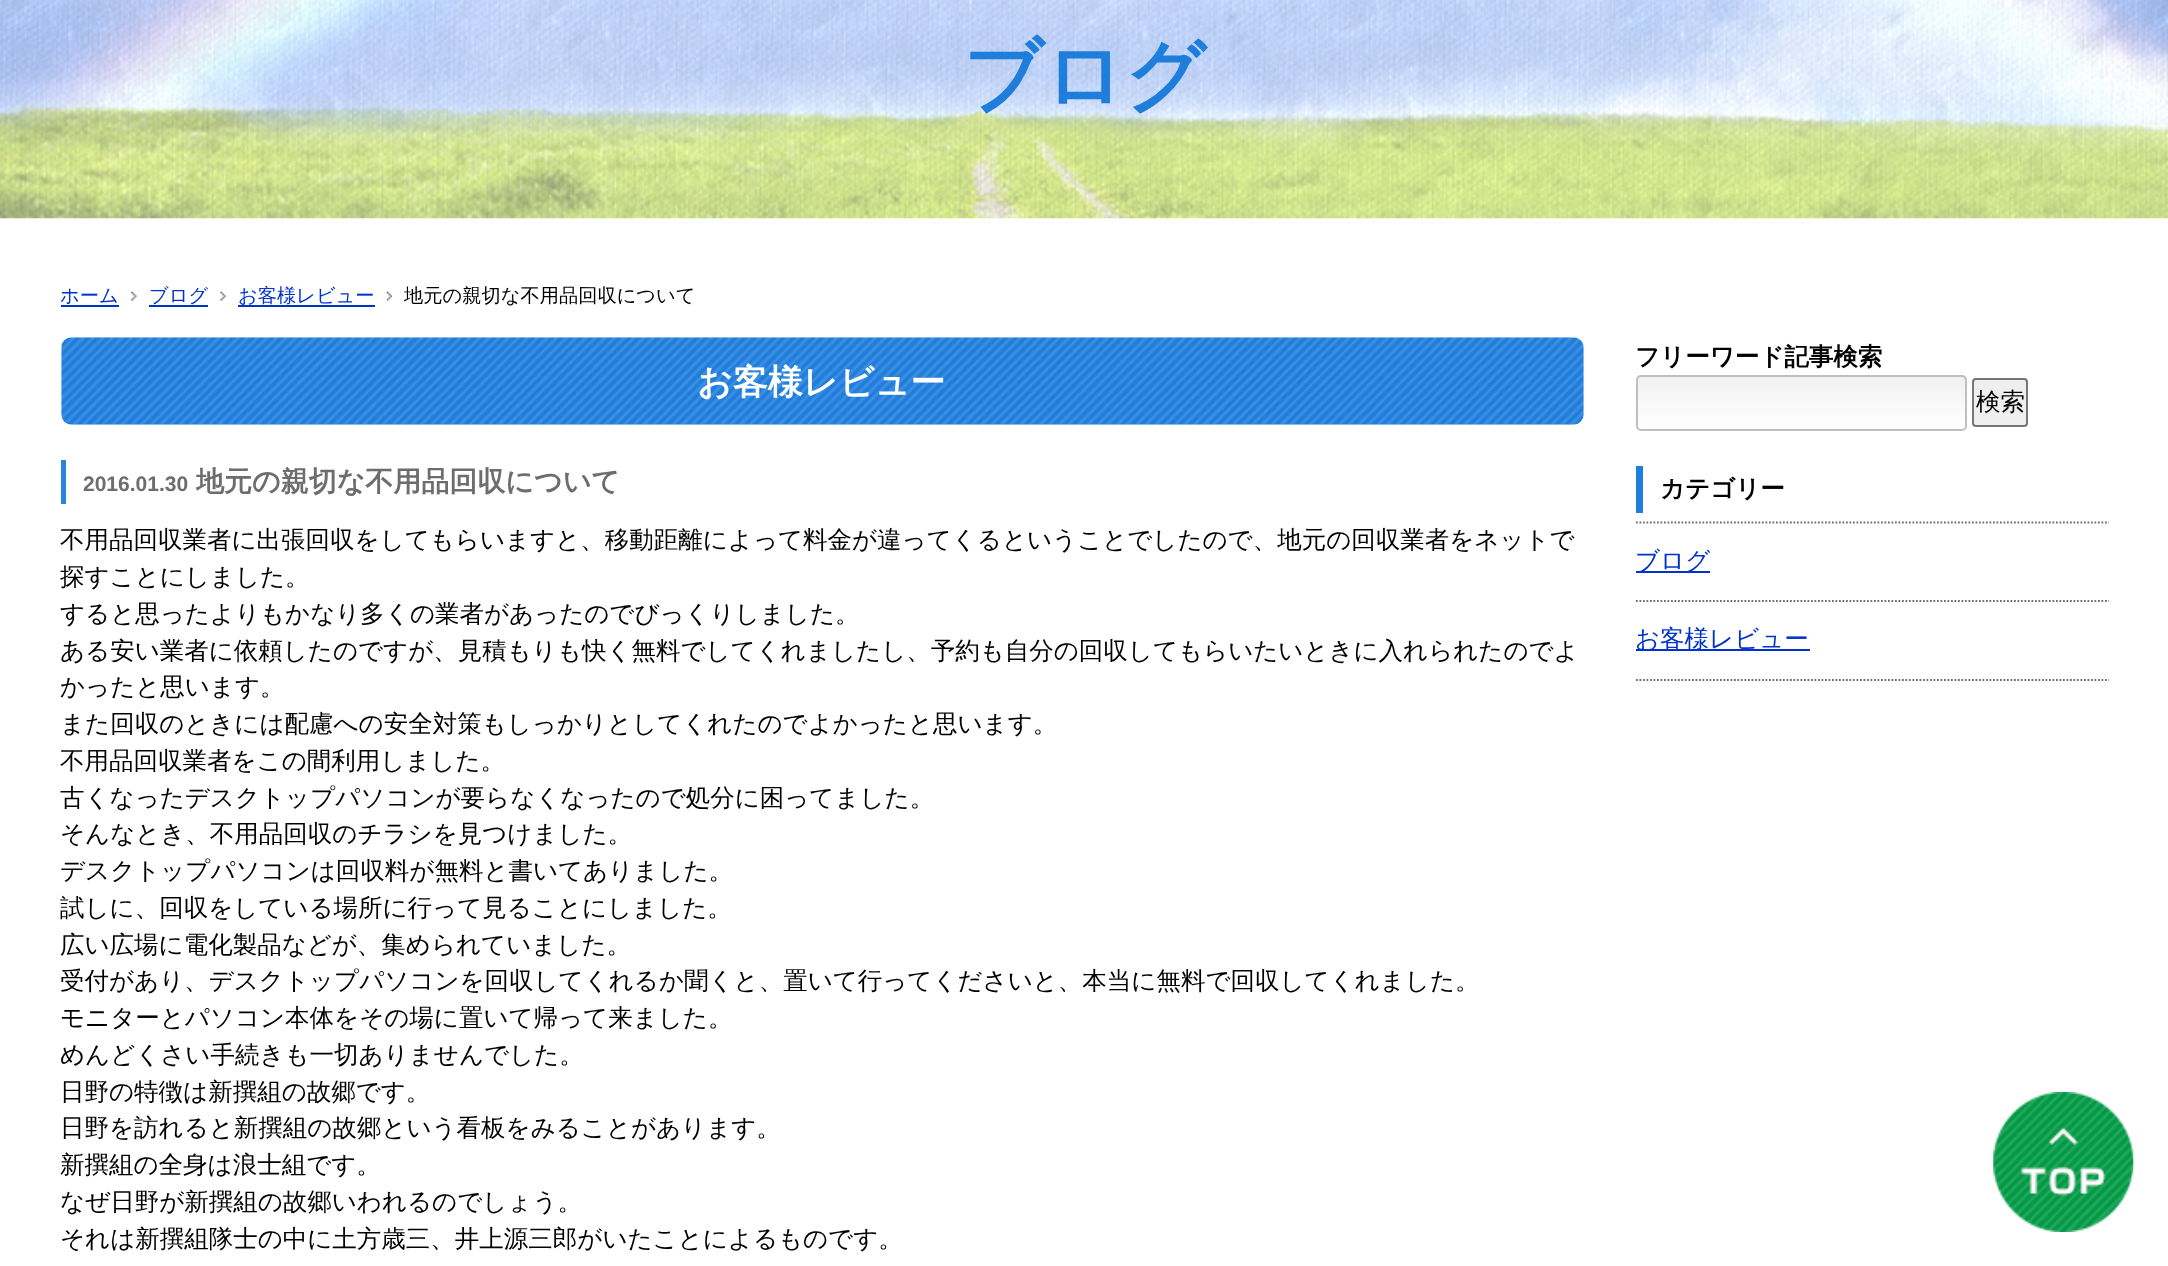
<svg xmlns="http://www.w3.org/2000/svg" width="2168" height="1266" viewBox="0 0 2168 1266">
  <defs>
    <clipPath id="clip1"><rect x="1636" y="375" width="331" height="56" rx="5"/></clipPath>
    <linearGradient id="g1" gradientUnits="userSpaceOnUse" x1="1638" y1="376" x2="1638" y2="429"><stop offset="0" stop-color="#f1f1f1"/><stop offset="1" stop-color="#fff"/></linearGradient>
  </defs>
  <rect width="100%" height="100%" fill="#fff"/>
  <image x="0" y="0" width="2168" height="219" href="img/1.png"/>
  <path d="M61 305h58v2H61z" fill="#03c"/>
  <image x="131" y="291" width="6" height="10" href="img/2.png"/>
  <path d="M149 305h59v2H149z" fill="#03c"/>
  <image x="220" y="291" width="6" height="10" href="img/3.png"/>
  <path d="M238 305h137v2H238z" fill="#03c"/>
  <image x="386" y="291" width="6" height="10" href="img/4.png"/>
  <image x="61" y="337" width="1523" height="88" href="img/5.png"/>
  <path d="M61 460h5v44H61z" fill="#2883de"/>
  <g clip-path="url(#clip1)">
    <path d="M1636 376h331v53H1636z" fill="url(#g1)"/>
  </g>
  <rect x="1637" y="376" width="329" height="54" rx="4" fill="none" stroke="#bfbfbf" stroke-width="2"/>
  <rect x="1973" y="379" width="54" height="47" rx="3" fill="#efefef" stroke="#767676" stroke-width="2"/>
  <path d="M1636 466h7v47H1636z" fill="#1f7edc"/>
  <path d="M1636 522.5H2109" fill="none" stroke="#6d6d6d" stroke-width="1.8" stroke-dasharray="1.75 1.75"/>
  <path d="M1636 601H2109" fill="none" stroke="#6d6d6d" stroke-width="1.8" stroke-dasharray="1.75 1.75"/>
  <path d="M1636 571h74v2H1636z" fill="#03c"/>
  <path d="M1636 680H2109" fill="none" stroke="#6d6d6d" stroke-width="1.8" stroke-dasharray="1.75 1.75"/>
  <path d="M1636 649h174v2H1636z" fill="#03c"/>
  <image x="1993" y="1092" width="141" height="140" href="img/6.png"/>
  <text x="963" y="103" font-family="WenQuanYi Zen Hei" font-size="79" font-weight="bold" fill="#1f7edc">ブログ</text>
  <g font-family="WenQuanYi Zen Hei" font-size="19.25" font-weight="500" fill="#03c">
    <text x="60" y="302">ホーム</text>
    <text x="149" y="302">ブログ</text>
    <text x="238" y="302">お客様レビュー</text>
  </g>
  <text x="404" y="302" font-family="WenQuanYi Zen Hei" font-size="19.25" font-weight="500" fill="#000">地元の親切な不用品回収について</text>
  <text x="697" y="394" font-family="WenQuanYi Zen Hei" font-size="35" font-weight="bold" fill="#fff">お客様レビュー</text>
  <text x="83" y="491" font-family="Liberation Sans" font-size="21" font-weight="bold" fill="#6d6d6d">2016.01.30</text>
  <text x="196" y="491" font-family="WenQuanYi Zen Hei" font-size="28" font-weight="bold" fill="#6d6d6d">地元の親切な不用品回収について</text>
  <g font-family="WenQuanYi Zen Hei" font-size="24.5" font-weight="500" fill="#000">
    <text x="60" y="548">不用品回収業者に出張回収をしてもらいますと、移動距離によって料金が違ってくるということでしたので、地元の回収業者をネットで</text>
    <text x="60" y="585">探すことにしました。</text>
    <text x="60" y="622">すると思ったよりもかなり多くの業者があったのでびっくりしました。</text>
    <text x="60" y="659">ある安い業者に依頼したのですが、見積もりも快く無料でしてくれましたし、予約も自分の回収してもらいたいときに入れられたのでよ</text>
    <text x="60" y="695">かったと思います。</text>
    <text x="60" y="732">また回収のときには配慮への安全対策もしっかりとしてくれたのでよかったと思います。</text>
    <text x="60" y="769">不用品回収業者をこの間利用しました。</text>
    <text x="60" y="806">古くなったデスクトップパソコンが要らなくなったので処分に困ってました。</text>
    <text x="60" y="842">そんなとき、不用品回収のチラシを見つけました。</text>
    <text x="60" y="879">デスクトップパソコンは回収料が無料と書いてありました。</text>
    <text x="60" y="916">試しに、回収をしている場所に行って見ることにしました。</text>
    <text x="60" y="953">広い広場に電化製品などが、集められていました。</text>
    <text x="60" y="989">受付があり、デスクトップパソコンを回収してくれるか聞くと、置いて行ってくださいと、本当に無料で回収してくれました。</text>
    <text x="60" y="1026">モニターとパソコン本体をその場に置いて帰って来ました。</text>
    <text x="60" y="1063">めんどくさい手続きも一切ありませんでした。</text>
    <text x="60" y="1100">日野の特徴は新撰組の故郷です。</text>
    <text x="60" y="1136">日野を訪れると新撰組の故郷という看板をみることがあります。</text>
    <text x="60" y="1173">新撰組の全身は浪士組です。</text>
    <text x="60" y="1210">なぜ日野が新撰組の故郷いわれるのでしょう。</text>
    <text x="60" y="1247">それは新撰組隊士の中に土方歳三、井上源三郎がいたことによるものです。</text>
  </g>
  <text x="1635" y="365" font-family="WenQuanYi Zen Hei" font-size="24.5" font-weight="bold" fill="#000">フリーワード記事検索</text>
  <text x="1976" y="410" font-family="WenQuanYi Zen Hei" font-size="24.5" font-weight="500" fill="#000">検索</text>
  <text x="1660" y="497" font-family="WenQuanYi Zen Hei" font-size="24.5" font-weight="bold" fill="#000">カテゴリー</text>
  <g font-family="WenQuanYi Zen Hei" font-size="24.5" font-weight="500" fill="#03c">
    <text x="1635" y="569">ブログ</text>
    <text x="1635" y="647">お客様レビュー</text>
  </g>
</svg>
